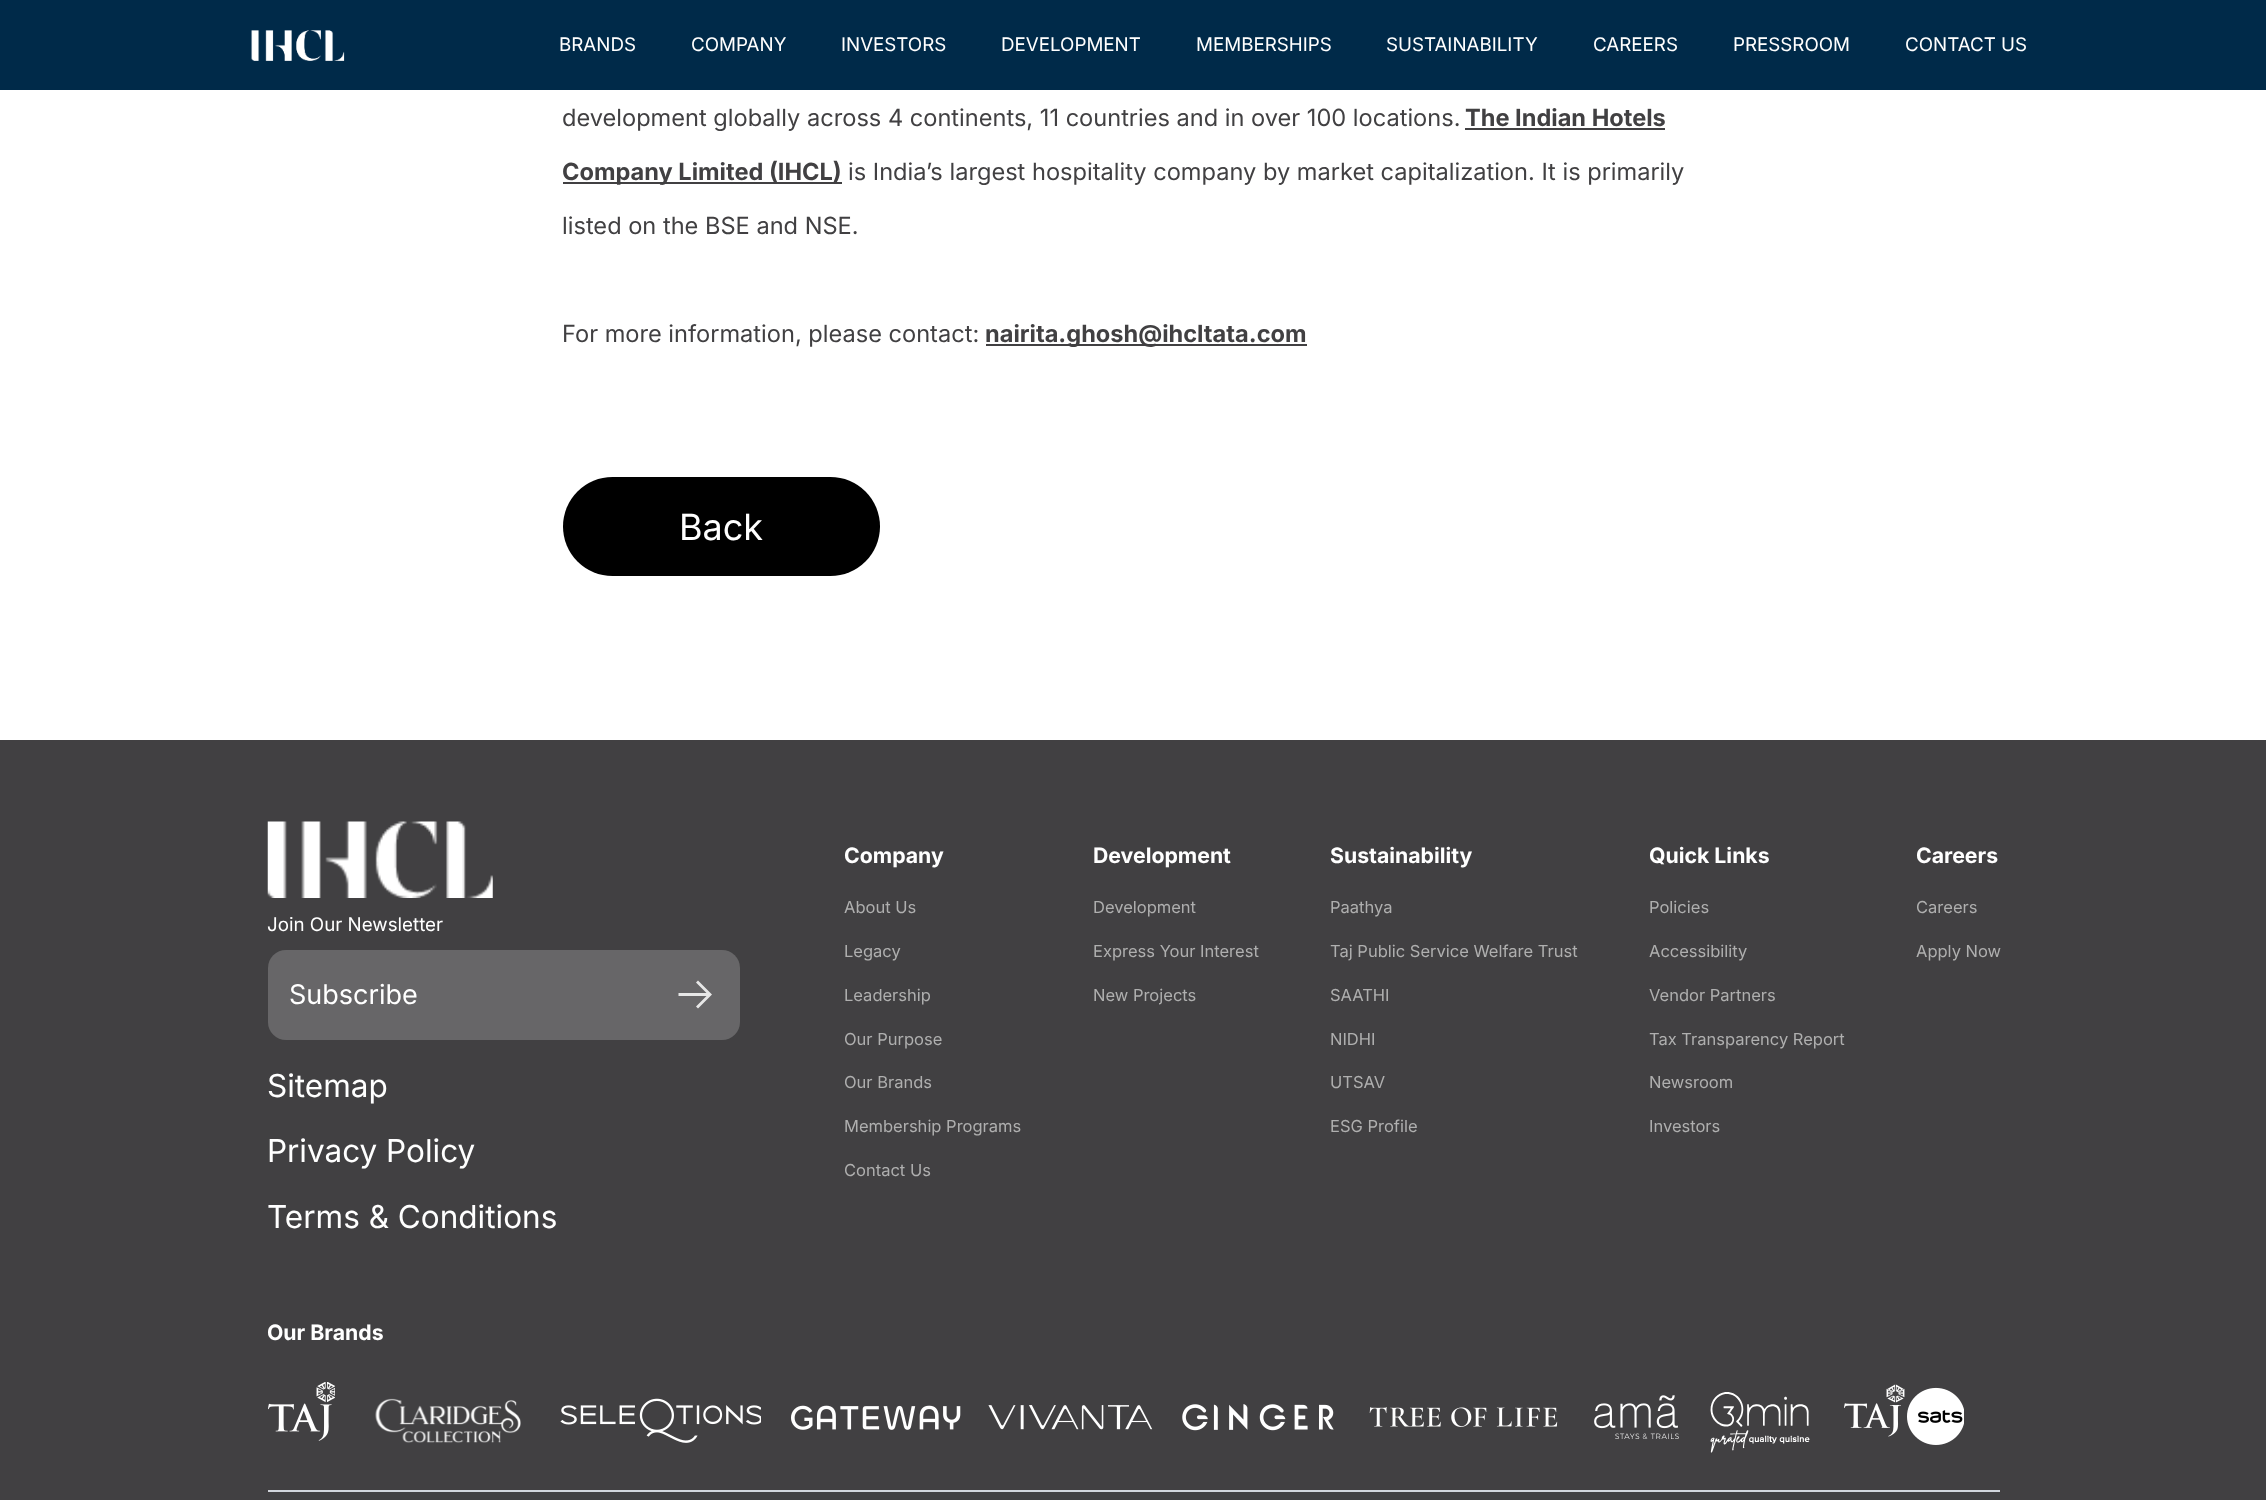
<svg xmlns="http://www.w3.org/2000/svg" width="2266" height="1500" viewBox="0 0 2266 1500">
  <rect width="100%" height="100%" fill="#fff"/>
  <path d="M0 0h2266v90H0z" fill="#002a49"/>
  <image x="251" y="30" width="94" height="31" href="img/1.png"/>
  <path d="M1465 128h200v2H1465z" fill="#414042"/>
  <path d="M563 182h279v2H563z" fill="#414042"/>
  <path d="M986 344h321v2H986z" fill="#414042"/>
  <rect x="563" y="477" width="317" height="99" rx="49.5" fill="#000"/>
  <path d="M0 740h2266v760H0z" fill="#414042"/>
  <image x="267" y="821" width="226" height="77" href="img/2.png"/>
  <rect x="268" y="950" width="472" height="90" rx="18" fill="#676668"/>
  <path d="M698 980.5L696 982.5L706.5 993H678.5V996H706.5L696 1006.5L698 1008.5L712 994.5Z" fill="#e7e7e7"/>
  <path d="M268 1490h1732v2H268z" fill="#d1d5dc"/>
  <image x="268" y="1382" width="67" height="59" href="img/3.png"/>
  <image x="375" y="1398" width="146" height="45" href="img/4.png"/>
  <image x="560" y="1398" width="201" height="45" href="img/5.png"/>
  <image x="791" y="1405" width="170" height="25" href="img/6.png"/>
  <image x="988" y="1405" width="165" height="25" href="img/7.png"/>
  <image x="1182" y="1404" width="152" height="27" href="img/8.png"/>
  <image x="1369" y="1407" width="189" height="20" href="img/9.png"/>
  <image x="1594" y="1395" width="85" height="44" href="img/10.png"/>
  <image x="1710" y="1392" width="100" height="61" href="img/11.png"/>
  <image x="1844" y="1384" width="120" height="61" href="img/12.png"/>
  <g font-family="Inter" font-size="18.75" fill="#fff">
    <text x="559" y="51">BRANDS</text>
    <text x="691" y="51">COMPANY</text>
    <text x="841" y="51">INVESTORS</text>
    <text x="1001" y="51">DEVELOPMENT</text>
    <text x="1196" y="51">MEMBERSHIPS</text>
    <text x="1386" y="51">SUSTAINABILITY</text>
    <text x="1593" y="51">CAREERS</text>
    <text x="1733" y="51">PRESSROOM</text>
    <text x="1905" y="51">CONTACT US</text>
  </g>
  <text x="562" y="126" font-family="Inter" font-size="23.6" fill="#414042">development globally across 4 continents, 11 countries and in over 100 locations.</text>
  <g font-family="Inter" font-size="23.6" font-weight="bold" fill="#414042">
    <text x="1465" y="126">The Indian Hotels</text>
    <text x="562" y="180">Company Limited (IHCL)</text>
  </g>
  <g font-family="Inter" font-size="23.6" fill="#414042">
    <text x="848" y="180">is India’s largest hospitality company by market capitalization. It is primarily</text>
    <text x="562" y="234">listed on the BSE and NSE.</text>
    <text x="562" y="342">For more information, please contact:</text>
  </g>
  <text x="985" y="342" font-family="Inter" font-size="23.6" font-weight="bold" fill="#414042">nairita.ghosh@ihcltata.com</text>
  <text x="679" y="540" font-family="Inter" font-size="36" fill="#fff">Back</text>
  <text x="267" y="931" font-family="Inter" font-size="18.75" fill="#fff">Join Our Newsletter</text>
  <text x="289" y="1004" font-family="Inter" font-size="27" fill="#fff">Subscribe</text>
  <g font-family="Inter" font-size="31.5" fill="#fff">
    <text x="267" y="1097">Sitemap</text>
    <text x="267" y="1162">Privacy Policy</text>
    <text x="267" y="1228">Terms &amp; Conditions</text>
  </g>
  <text x="844" y="863" font-family="Inter" font-size="21.25" font-weight="bold" fill="#fff">Company</text>
  <g font-family="Inter" font-size="16.5" fill="#afafaf">
    <text x="844" y="913">About Us</text>
    <text x="844" y="957">Legacy</text>
    <text x="844" y="1001">Leadership</text>
    <text x="844" y="1045">Our Purpose</text>
    <text x="844" y="1088">Our Brands</text>
    <text x="844" y="1132">Membership Programs</text>
    <text x="844" y="1176">Contact Us</text>
  </g>
  <text x="1093" y="863" font-family="Inter" font-size="21.25" font-weight="bold" fill="#fff">Development</text>
  <g font-family="Inter" font-size="16.5" fill="#afafaf">
    <text x="1093" y="913">Development</text>
    <text x="1093" y="957">Express Your Interest</text>
    <text x="1093" y="1001">New Projects</text>
  </g>
  <text x="1330" y="863" font-family="Inter" font-size="21.25" font-weight="bold" fill="#fff">Sustainability</text>
  <g font-family="Inter" font-size="16.5" fill="#afafaf">
    <text x="1330" y="913">Paathya</text>
    <text x="1330" y="957">Taj Public Service Welfare Trust</text>
    <text x="1330" y="1001">SAATHI</text>
    <text x="1330" y="1045">NIDHI</text>
    <text x="1330" y="1088">UTSAV</text>
    <text x="1330" y="1132">ESG Profile</text>
  </g>
  <text x="1649" y="863" font-family="Inter" font-size="21.25" font-weight="bold" fill="#fff">Quick Links</text>
  <g font-family="Inter" font-size="16.5" fill="#afafaf">
    <text x="1649" y="913">Policies</text>
    <text x="1649" y="957">Accessibility</text>
    <text x="1649" y="1001">Vendor Partners</text>
    <text x="1649" y="1045">Tax Transparency Report</text>
    <text x="1649" y="1088">Newsroom</text>
    <text x="1649" y="1132">Investors</text>
  </g>
  <text x="1916" y="863" font-family="Inter" font-size="21.25" font-weight="bold" fill="#fff">Careers</text>
  <g font-family="Inter" font-size="16.5" fill="#afafaf">
    <text x="1916" y="913">Careers</text>
    <text x="1916" y="957">Apply Now</text>
  </g>
  <text x="267" y="1340" font-family="Inter" font-size="21.25" font-weight="bold" fill="#fff">Our Brands</text>
</svg>
